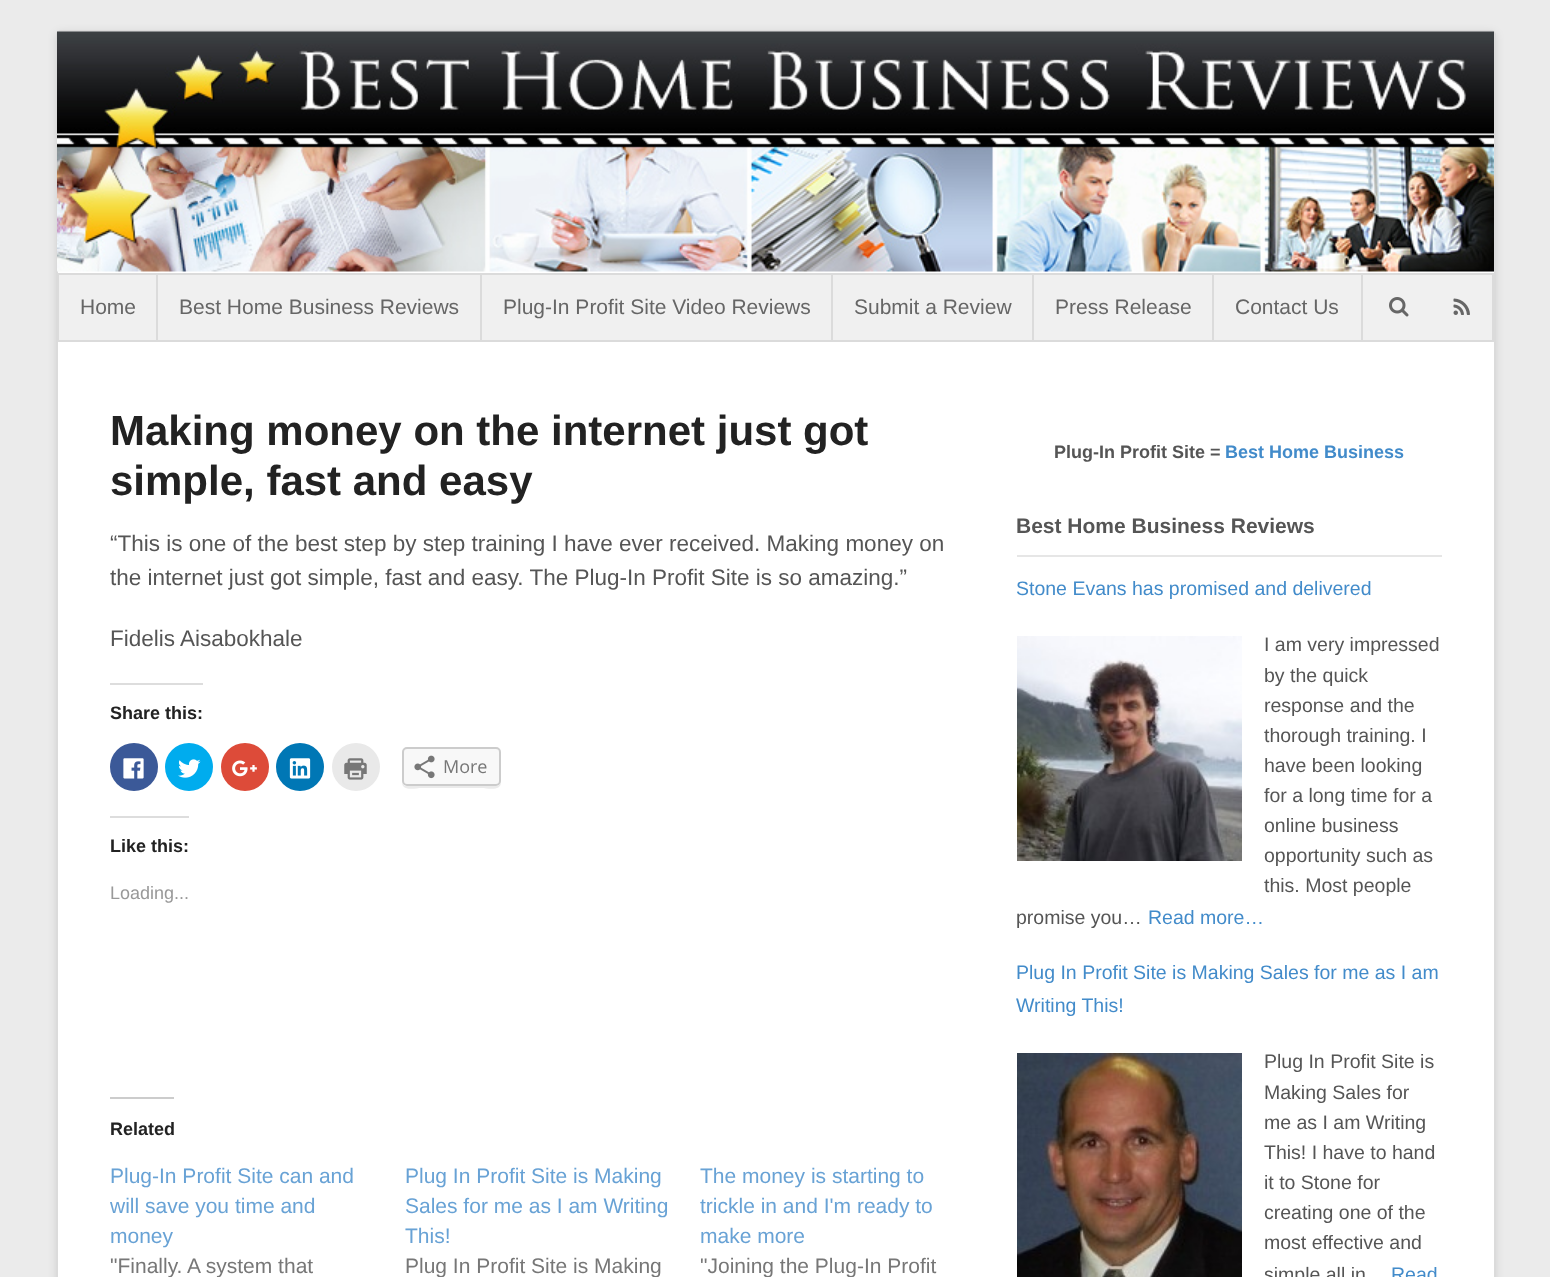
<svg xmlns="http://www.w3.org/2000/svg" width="1550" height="1277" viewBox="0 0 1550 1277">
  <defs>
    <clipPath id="clip1"><path d="M701 1251h264v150H701z"/></clipPath>
  </defs>
  <rect width="100%" height="100%" fill="#ebebeb"/>
  <rect x="56" y="32" width="1440" height="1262" rx="5" fill="#0000001a" filter="blur(4px)"/>
  <rect x="57" y="31" width="1438" height="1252" rx="4" fill="#fff" stroke="#dbdbdb" stroke-width="2"/>
  <image x="57" y="31" width="1437" height="241" href="img/1.png"/>
  <path d="M58 274h1435v67H58z" fill="#f0f0f0" stroke="#dbdbdb" stroke-width="2"/>
  <path d="M156 275h2v66H156z" fill="#dbdbdb"/>
  <path d="M480 275h2v66H480z" fill="#dbdbdb"/>
  <path d="M831 275h2v66H831z" fill="#dbdbdb"/>
  <path d="M1032 275h2v66H1032z" fill="#dbdbdb"/>
  <path d="M1212 275h2v66H1212z" fill="#dbdbdb"/>
  <path d="M1361 275h2v66H1361z" fill="#dbdbdb"/>
  <image x="1389" y="297" width="20" height="20" href="img/2.png"/>
  <image x="1453" y="298" width="17" height="17" href="img/3.png"/>
  <path d="M110 683h93v2H110z" fill="#ddd"/>
  <circle cx="134" cy="767" r="24" fill="#3b5998"/>
  <image x="123" y="758" width="21" height="21" href="img/4.png"/>
  <circle cx="189" cy="767" r="24" fill="#00acee"/>
  <image x="178" y="759" width="23" height="19" href="img/5.png"/>
  <circle cx="245" cy="767" r="24" fill="#dd4b39"/>
  <image x="232" y="760" width="25" height="17" href="img/6.png"/>
  <circle cx="300" cy="767" r="24" fill="#0077b5"/>
  <image x="289" y="758" width="22" height="21" href="img/7.png"/>
  <circle cx="356" cy="767" r="24" fill="#e9e9e9"/>
  <image x="344" y="758" width="23" height="22" href="img/8.png"/>
  <path d="M402 782C402 792 415 788 422 788H481C488 788 501 792 501 782C501 784 499 786 496 786H406C404 786 402 784 402 782Z" fill="#ebebeb"/>
  <rect x="403" y="748" width="97" height="37" rx="4" fill="#f8f8f8" stroke="#ccc" stroke-width="2"/>
  <image x="414" y="755" width="21" height="24" href="img/9.png"/>
  <path d="M110 816h79v2H110z" fill="#ddd"/>
  <path d="M110 1097h64v2H110z" fill="#ccc"/>
  <path d="M1017 555h425v2H1017z" fill="#e6e6e6"/>
  <image x="1017" y="636" width="225" height="225" href="img/10.png"/>
  <image x="1017" y="1053" width="225" height="224" href="img/11.png"/>
  <g font-family="Liberation Sans" font-size="21" fill="#666">
    <text x="80" y="314">Home</text>
    <text x="179" y="314">Best Home Business Reviews</text>
    <text x="503" y="314">Plug-In Profit Site Video Reviews</text>
    <text x="854" y="314">Submit a Review</text>
    <text x="1055" y="314">Press Release</text>
    <text x="1235" y="314">Contact Us</text>
  </g>
  <g font-family="Liberation Sans" font-size="42" font-weight="bold" fill="#222">
    <text x="110" y="445">Making money on the internet just got</text>
    <text x="110" y="495">simple, fast and easy</text>
  </g>
  <g font-family="Liberation Sans" font-size="22.5" fill="#555">
    <text x="110" y="551">“This is one of the best step by step training I have ever received. Making money on</text>
    <text x="110" y="585">the internet just got simple, fast and easy. The Plug-In Profit Site is so amazing.”</text>
    <text x="110" y="646">Fidelis Aisabokhale</text>
  </g>
  <text x="110" y="719" font-family="Liberation Sans" font-size="18" font-weight="bold" fill="#222">Share this:</text>
  <text x="443" y="773" font-family="Open Sans" font-size="18" fill="#777">More</text>
  <text x="110" y="852" font-family="Liberation Sans" font-size="18" font-weight="bold" fill="#222">Like this:</text>
  <text x="110" y="899" font-family="Liberation Sans" font-size="18" fill="#999">Loading...</text>
  <text x="110" y="1135" font-family="Liberation Sans" font-size="18" font-weight="bold" fill="#222">Related</text>
  <g font-family="Liberation Sans" font-size="21" fill="#68a2d5">
    <text x="110" y="1183">Plug-In Profit Site can and</text>
    <text x="110" y="1213">will save you time and</text>
    <text x="110" y="1243">money</text>
  </g>
  <text x="110" y="1273" font-family="Liberation Sans" font-size="21" fill="#777">"Finally. A system that</text>
  <g font-family="Liberation Sans" font-size="21" fill="#68a2d5">
    <text x="405" y="1183">Plug In Profit Site is Making</text>
    <text x="405" y="1213">Sales for me as I am Writing</text>
    <text x="405" y="1243">This!</text>
  </g>
  <text x="405" y="1273" font-family="Liberation Sans" font-size="21" fill="#777">Plug In Profit Site is Making</text>
  <g font-family="Liberation Sans" font-size="21" fill="#68a2d5">
    <text x="700" y="1183">The money is starting to</text>
    <text x="700" y="1213">trickle in and I'm ready to</text>
    <text x="700" y="1243">make more</text>
  </g>
  <g clip-path="url(#clip1)">
    <text x="700" y="1273" font-family="Liberation Sans" font-size="21" fill="#777">"Joining the Plug-In Profit</text>
  </g>
  <text x="1054" y="458" font-family="Liberation Sans" font-size="18" font-weight="bold" fill="#555">Plug-In Profit Site =</text>
  <text x="1225" y="458" font-family="Liberation Sans" font-size="18" font-weight="bold" fill="#428bca">Best Home Business</text>
  <text x="1016" y="533" font-family="Liberation Sans" font-size="21" font-weight="bold" fill="#555">Best Home Business Reviews</text>
  <text x="1016" y="595" font-family="Liberation Sans" font-size="19.5" fill="#428bca">Stone Evans has promised and delivered</text>
  <g font-family="Liberation Sans" font-size="19.5" fill="#555">
    <text x="1264" y="651">I am very impressed</text>
    <text x="1264" y="682">by the quick</text>
    <text x="1264" y="712">response and the</text>
    <text x="1264" y="742">thorough training. I</text>
    <text x="1264" y="772">have been looking</text>
    <text x="1264" y="802">for a long time for a</text>
    <text x="1264" y="832">online business</text>
    <text x="1264" y="862">opportunity such as</text>
    <text x="1264" y="892">this. Most people</text>
    <text x="1016" y="924">promise you…</text>
  </g>
  <g font-family="Liberation Sans" font-size="19.5" fill="#428bca">
    <text x="1148" y="924">Read more…</text>
    <text x="1016" y="979">Plug In Profit Site is Making Sales for me as I am</text>
    <text x="1016" y="1012">Writing This!</text>
  </g>
  <g font-family="Liberation Sans" font-size="19.5" fill="#555">
    <text x="1264" y="1068">Plug In Profit Site is</text>
    <text x="1264" y="1099">Making Sales for</text>
    <text x="1264" y="1129">me as I am Writing</text>
    <text x="1264" y="1159">This! I have to hand</text>
    <text x="1264" y="1189">it to Stone for</text>
    <text x="1264" y="1219">creating one of the</text>
    <text x="1264" y="1249">most effective and</text>
    <text x="1264" y="1281">simple all in</text>
  </g>
  <text x="1391" y="1281" font-family="Liberation Sans" font-size="19.5" fill="#428bca">Read</text>
</svg>
